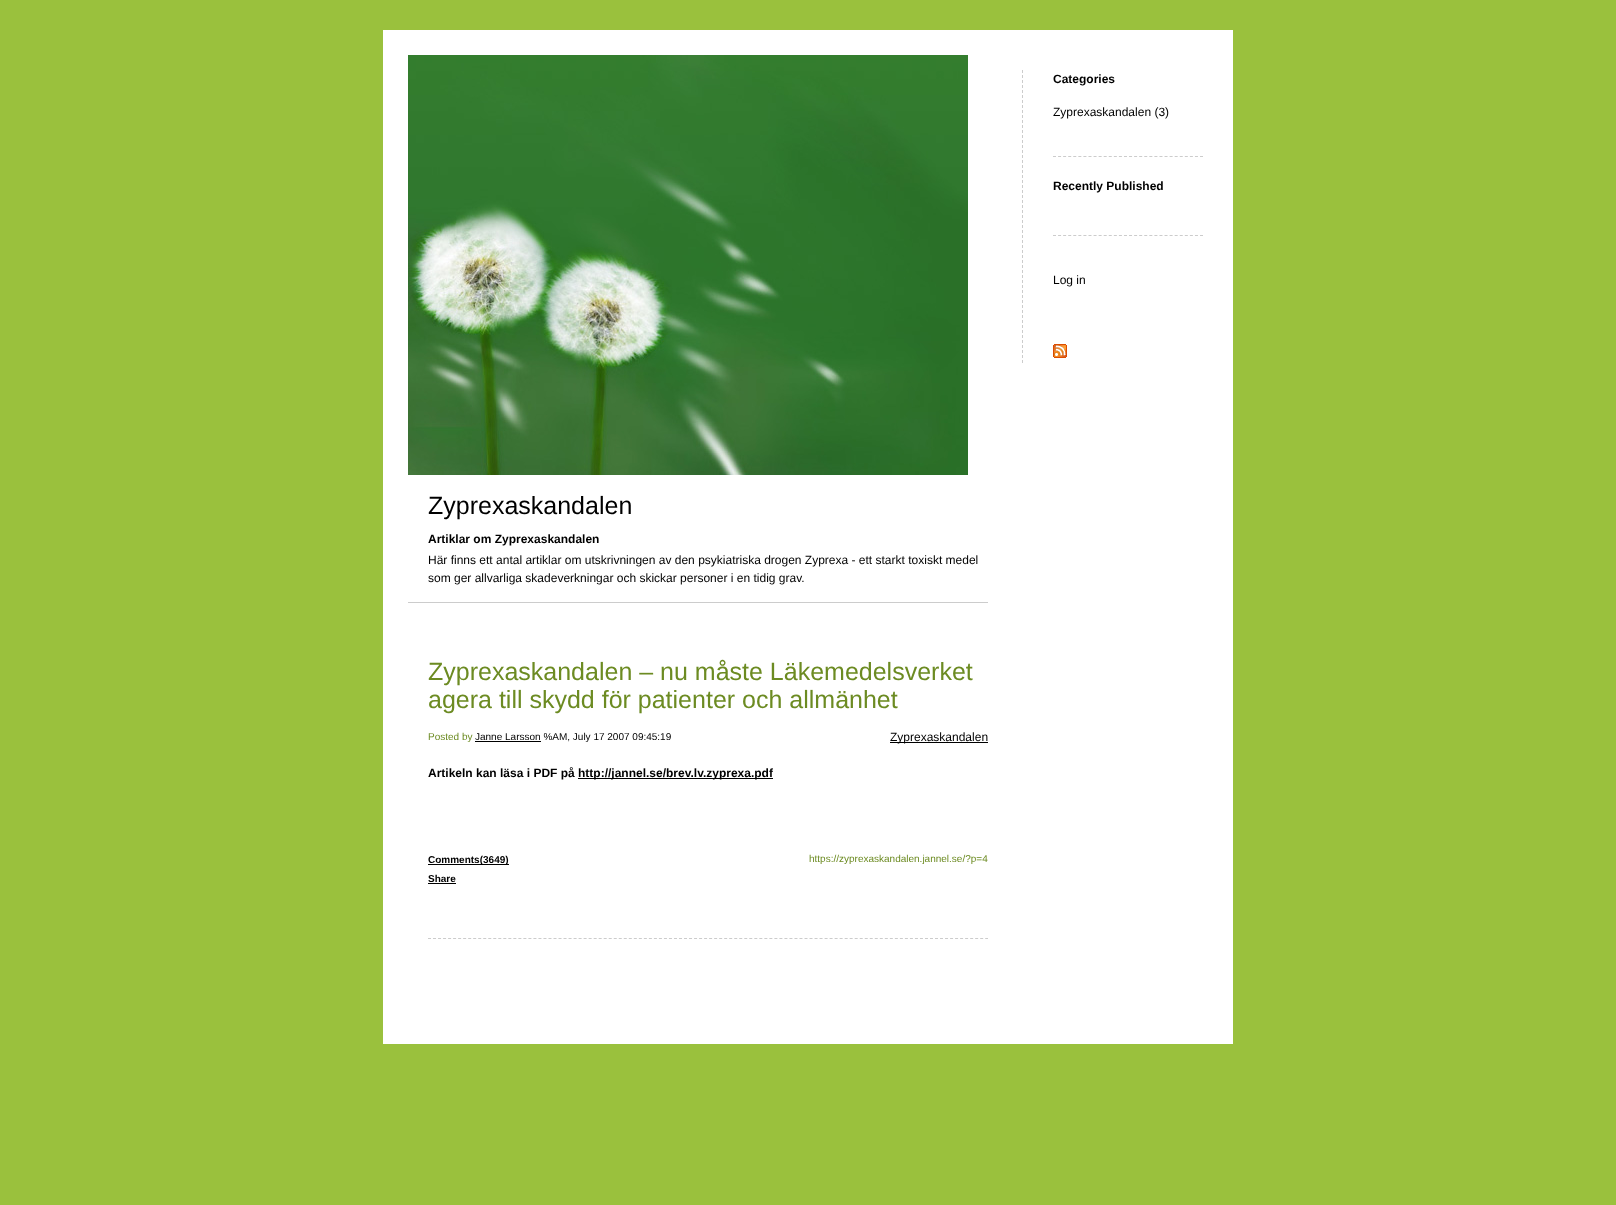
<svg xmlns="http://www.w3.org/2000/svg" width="1616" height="1205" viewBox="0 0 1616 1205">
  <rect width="100%" height="100%" fill="#9ac13d"/>
  <path d="M383 30h850v1014H383z" fill="#fff"/>
  <image x="408" y="55" width="560" height="420" href="img/1.png"/>
  <path d="M1022.5 70V363" fill="none" stroke="#ccc" stroke-dasharray="3 2"/>
  <path d="M1053 156.5H1203" fill="none" stroke="#ccc" stroke-dasharray="3 2.07"/>
  <path d="M1053 235.5H1203" fill="none" stroke="#ccc" stroke-dasharray="3 2.07"/>
  <image x="1053" y="344" width="14" height="14" href="img/2.png"/>
  <path d="M408 602h580v1H408z" fill="#ccc"/>
  <path d="M428 938.5H988" fill="none" stroke="#ccc" stroke-dasharray="3 2.02"/>
  <path d="M475 741h66v1H475z" fill="#000"/>
  <path d="M890 742h98v1H890z" fill="#000"/>
  <path d="M578 778h195v1H578z" fill="#000"/>
  <path d="M428 864h81v1H428z" fill="#000"/>
  <path d="M428 883h28v1H428z" fill="#000"/>
  <text x="1053" y="83" font-family="Liberation Sans" font-size="12" font-weight="bold" fill="#000">Categories</text>
  <text x="1053" y="116" font-family="Liberation Sans" font-size="12" fill="#000">Zyprexaskandalen (3)</text>
  <text x="1053" y="190" font-family="Liberation Sans" font-size="12" font-weight="bold" fill="#000">Recently Published</text>
  <text x="1053" y="284" font-family="Liberation Sans" font-size="12" fill="#000">Log in</text>
  <text x="428" y="514" font-family="Liberation Sans" font-size="25" fill="#000">Zyprexaskandalen</text>
  <text x="428" y="543" font-family="Liberation Sans" font-size="12" font-weight="bold" fill="#000">Artiklar om Zyprexaskandalen</text>
  <g font-family="Liberation Sans" font-size="12" fill="#000">
    <text x="428" y="564">Här finns ett antal artiklar om utskrivningen av den psykiatriska drogen Zyprexa - ett starkt toxiskt medel</text>
    <text x="428" y="582">som ger allvarliga skadeverkningar och skickar personer i en tidig grav.</text>
  </g>
  <g font-family="Liberation Sans" font-size="25" fill="#6c8b22">
    <text x="428" y="680">Zyprexaskandalen – nu måste Läkemedelsverket</text>
    <text x="428" y="708">agera till skydd för patienter och allmänhet</text>
  </g>
  <text x="428" y="740" font-family="Liberation Sans" font-size="10" fill="#6c8b22">Posted by</text>
  <text x="475" y="740" font-family="Liberation Sans" font-size="10" fill="#000">Janne Larsson %AM, July 17 2007 09:45:19</text>
  <text x="890" y="741" font-family="Liberation Sans" font-size="12" fill="#000">Zyprexaskandalen</text>
  <g font-family="Liberation Sans" font-size="12" font-weight="bold" fill="#000">
    <text x="428" y="777">Artikeln kan läsa i PDF på</text>
    <text x="578" y="777">http://jannel.se/brev.lv.zyprexa.pdf</text>
  </g>
  <text x="428" y="863" font-family="Liberation Sans" font-size="10" font-weight="bold" fill="#000">Comments(3649)</text>
  <text x="809" y="862" font-family="Liberation Sans" font-size="10" fill="#6c8b22">https://zyprexaskandalen.jannel.se/?p=4</text>
  <text x="428" y="882" font-family="Liberation Sans" font-size="10" font-weight="bold" fill="#000">Share</text>
</svg>
